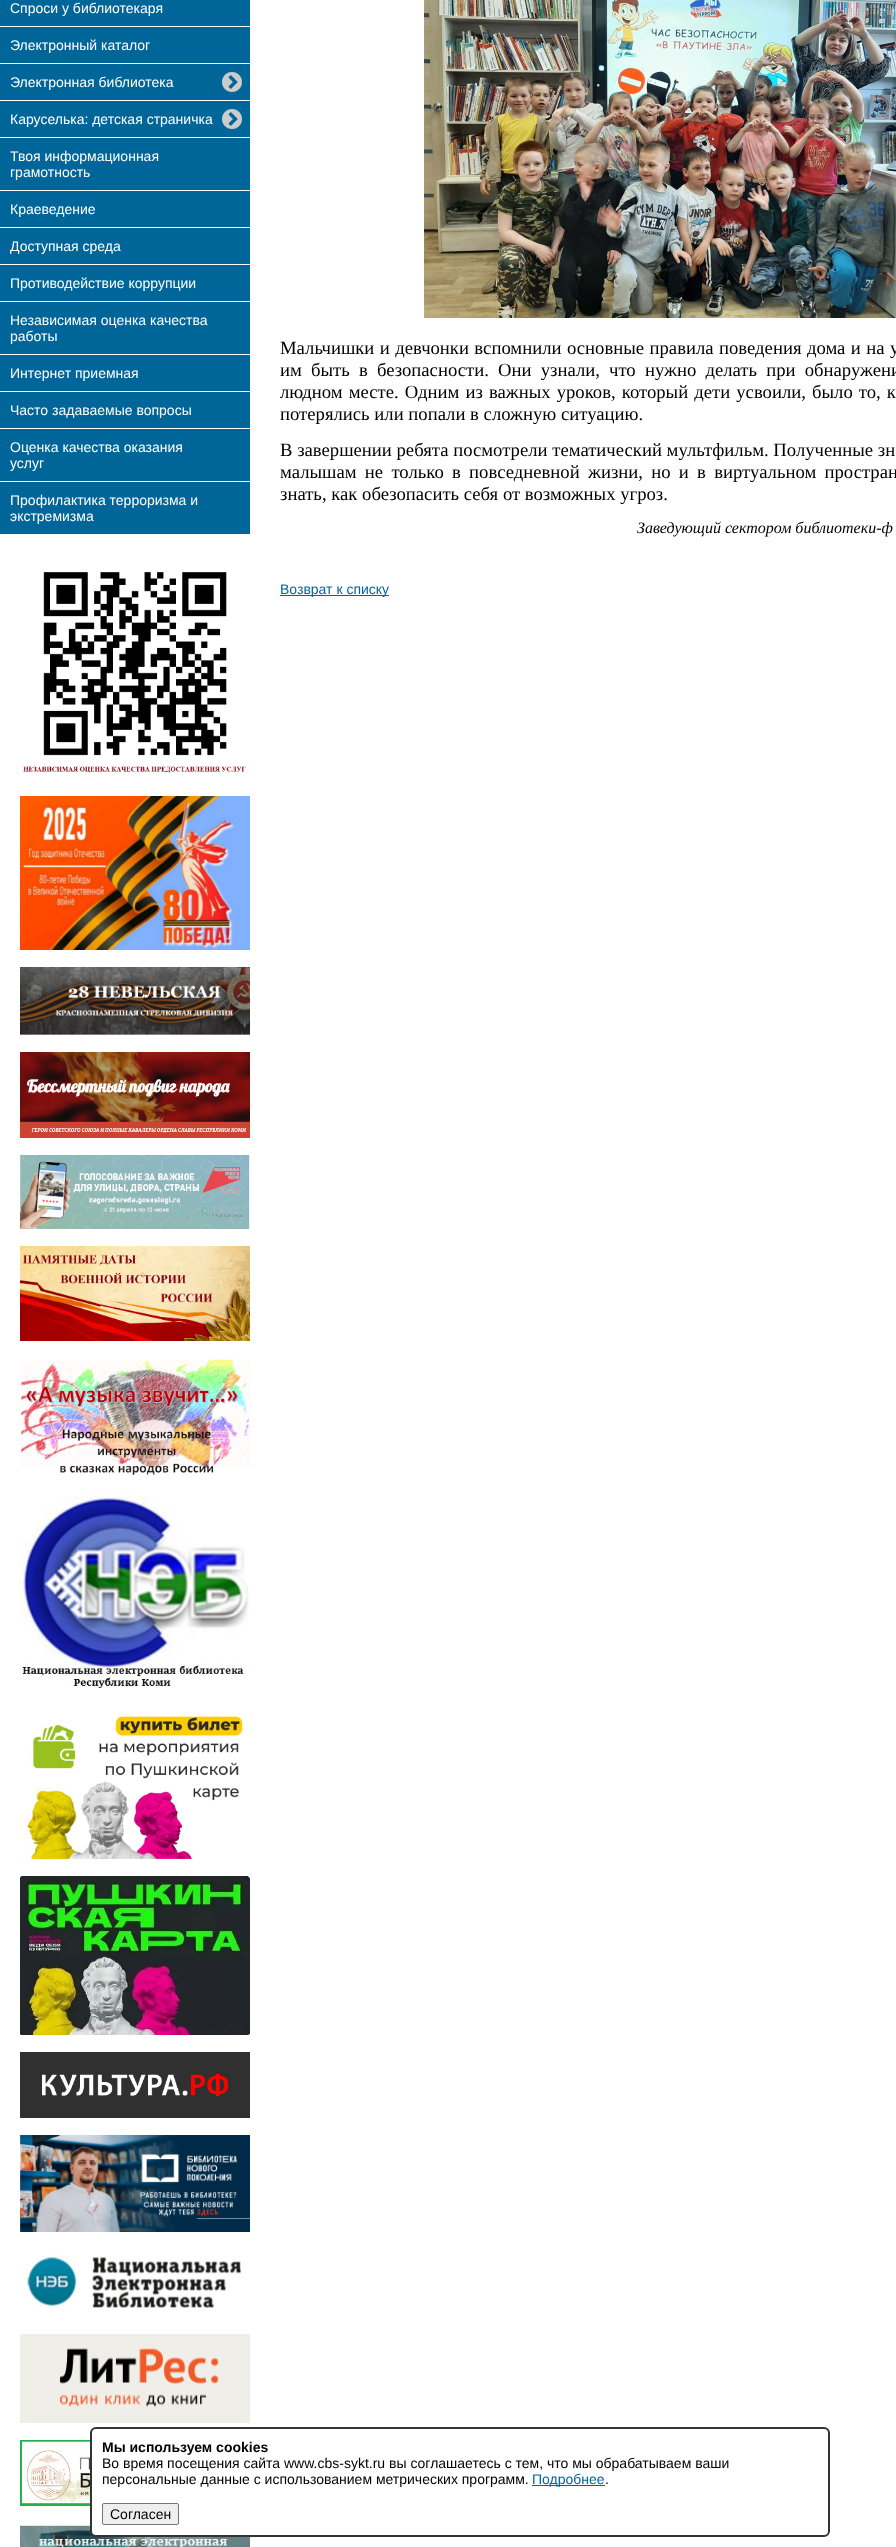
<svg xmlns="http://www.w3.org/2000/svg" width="896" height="2547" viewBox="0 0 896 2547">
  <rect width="100%" height="100%" fill="#fff"/>
  <path d="M0 0h250v26H0z" fill="#069"/>
  <path d="M0 27h250v36H0z" fill="#069"/>
  <path d="M0 64h250v36H0z" fill="#069"/>
  <image x="222" y="72" width="20" height="20" href="img/1.png"/>
  <path d="M0 101h250v36H0z" fill="#069"/>
  <image x="222" y="109" width="20" height="20" href="img/1.png"/>
  <path d="M0 138h250v52H0z" fill="#069"/>
  <path d="M0 191h250v36H0z" fill="#069"/>
  <path d="M0 228h250v36H0z" fill="#069"/>
  <path d="M0 265h250v36H0z" fill="#069"/>
  <path d="M0 302h250v52H0z" fill="#069"/>
  <path d="M0 355h250v36H0z" fill="#069"/>
  <path d="M0 392h250v36H0z" fill="#069"/>
  <path d="M0 429h250v52H0z" fill="#069"/>
  <path d="M0 482h250v52H0z" fill="#069"/>
  <image x="23" y="548" width="227" height="225" href="img/2.png"/>
  <image x="20" y="796" width="230" height="154" href="img/3.png"/>
  <image x="20" y="967" width="230" height="68" href="img/4.png"/>
  <image x="20" y="1052" width="230" height="86" href="img/5.png"/>
  <image x="20" y="1155" width="230" height="74" href="img/6.png"/>
  <image x="20" y="1246" width="230" height="95" href="img/7.png"/>
  <image x="20" y="1359" width="230" height="117" href="img/8.png"/>
  <image x="20" y="1495" width="229" height="193" href="img/9.png"/>
  <image x="26" y="1716" width="217" height="143" href="img/10.png"/>
  <image x="20" y="1876" width="230" height="159" href="img/11.png"/>
  <image x="20" y="2052" width="230" height="66" href="img/12.png"/>
  <image x="20" y="2135" width="230" height="97" href="img/13.png"/>
  <image x="26" y="2254" width="215" height="54" href="img/14.png"/>
  <image x="20" y="2334" width="230" height="89" href="img/15.png"/>
  <image x="20" y="2440" width="70" height="66" href="img/16.png"/>
  <image x="20" y="2524" width="230" height="23" href="img/17.png"/>
  <image x="424" y="0" width="472" height="318" href="img/18.png"/>
  <path d="M280 595h109v1H280z" fill="#069"/>
  <rect x="91" y="2428" width="738" height="108" rx="5" fill="#fff" stroke="#333" stroke-width="2"/>
  <path d="M532 2485h73v1H532z" fill="#069"/>
  <rect x="102.5" y="2503.5" width="76" height="21" rx="1.5" fill="#efefef" stroke="#767676"/>
  <g font-family="Liberation Sans" font-size="14" fill="#fff">
    <text x="10" y="13">Спроси у библиотекаря</text>
    <text x="10" y="50">Электронный каталог</text>
    <text x="10" y="87">Электронная библиотека</text>
    <text x="10" y="124">Каруселька: детская страничка</text>
    <text x="10" y="161">Твоя информационная</text>
    <text x="10" y="177">грамотность</text>
    <text x="10" y="214">Краеведение</text>
    <text x="10" y="251">Доступная среда</text>
    <text x="10" y="288">Противодействие коррупции</text>
    <text x="10" y="325">Независимая оценка качества</text>
    <text x="10" y="341">работы</text>
    <text x="10" y="378">Интернет приемная</text>
    <text x="10" y="415">Часто задаваемые вопросы</text>
    <text x="10" y="452">Оценка качества оказания</text>
    <text x="10" y="468">услуг</text>
    <text x="10" y="505">Профилактика терроризма и</text>
    <text x="10" y="521">экстремизма</text>
  </g>
  <g font-family="Liberation Serif" font-size="18.7" fill="#000">
    <text x="280" y="354" word-spacing="0.75">Мальчишки и девчонки вспомнили основные правила поведения дома и на у</text>
    <text x="280" y="376" word-spacing="4.5">им быть в безопасности. Они узнали, что нужно делать при обнаружени</text>
    <text x="280" y="398" word-spacing="1.4">людном месте. Одним из важных уроков, который дети усвоили, было то, к</text>
    <text x="280" y="420">потерялись или попали в сложную ситуацию.</text>
    <text x="280" y="456">В завершении ребята посмотрели тематический мультфильм. Полученные зн</text>
    <text x="280" y="478" word-spacing="3.6">малышам не только в повседневной жизни, но и в виртуальном простран</text>
    <text x="280" y="500">знать, как обезопасить себя от возможных угроз.</text>
  </g>
  <text x="637" y="533" font-family="Liberation Serif" font-size="16" font-style="italic" fill="#000">Заведующий сектором библиотеки-ф</text>
  <text x="280" y="594" font-family="Liberation Sans" font-size="14" fill="#069">Возврат к списку</text>
  <text x="102" y="2452" font-family="Liberation Sans" font-size="14" font-weight="bold" fill="#000">Мы используем cookies</text>
  <g font-family="Liberation Sans" font-size="14" fill="#000">
    <text x="102" y="2468">Во время посещения сайта www.cbs-sykt.ru вы соглашаетесь с тем, что мы обрабатываем ваши</text>
    <text x="102" y="2484">персональные данные с использованием метрических программ.</text>
  </g>
  <text x="532" y="2484" font-family="Liberation Sans" font-size="14" fill="#069">Подробнее</text>
  <g font-family="Liberation Sans" font-size="14" fill="#000">
    <text x="605" y="2484">.</text>
    <text x="110" y="2519">Согласен</text>
  </g>
</svg>
